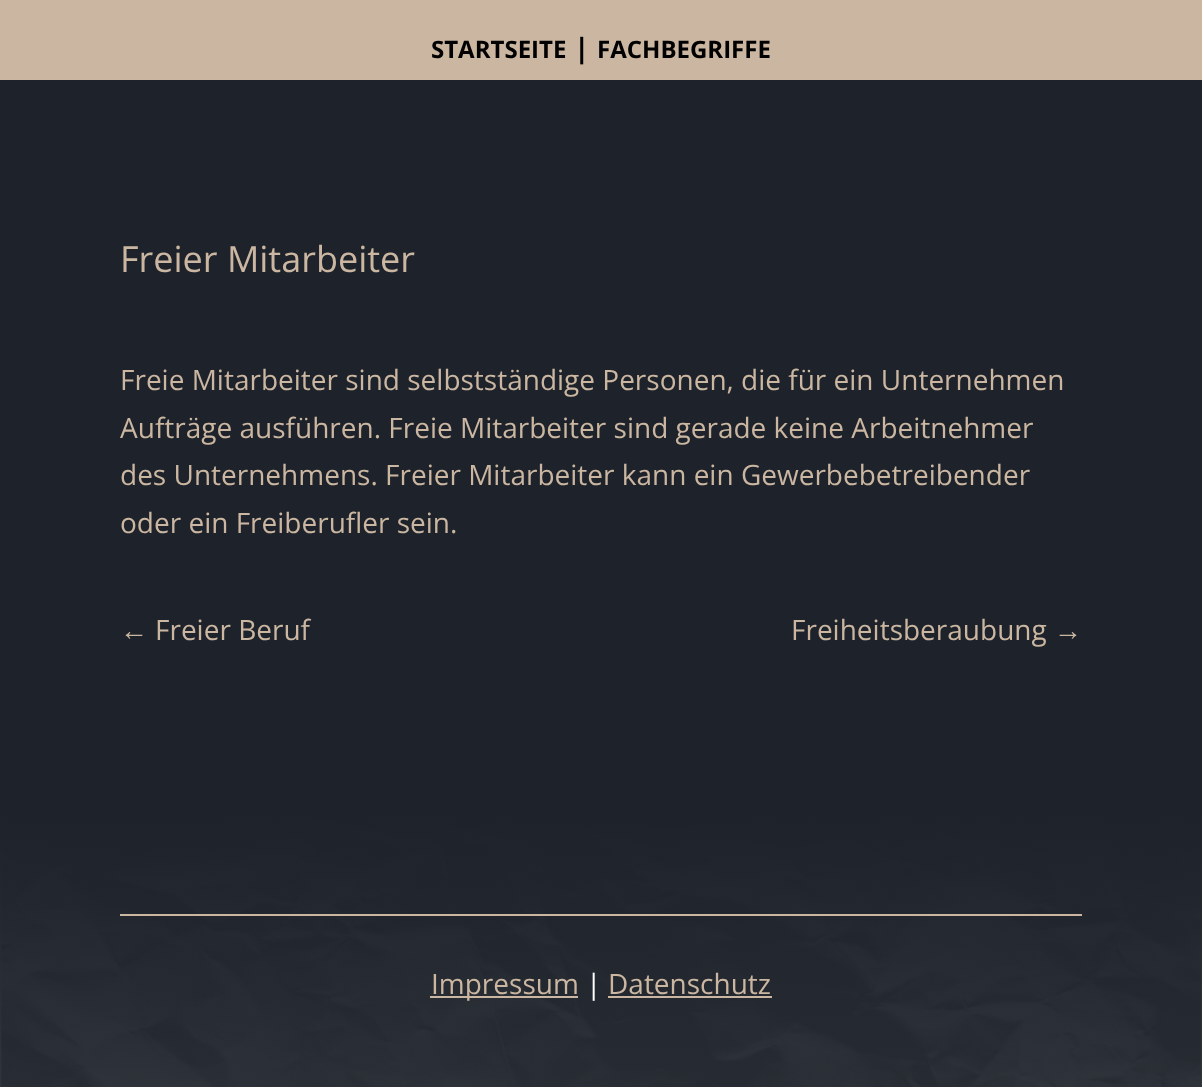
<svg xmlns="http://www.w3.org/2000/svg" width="1202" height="1087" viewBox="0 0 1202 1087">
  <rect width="100%" height="100%" fill="#1e232b"/>
  <path d="M0 0h1202v80H0z" fill="#cab6a1"/>
  <image x="0" y="814" width="1202" height="273" href="img/1.png"/>
  <path d="M120 914h962v2H120z" fill="#cab6a1"/>
  <path d="M430 996h148v2H430z" fill="#cab6a1"/>
  <path d="M608 996h164v2H608z" fill="#cab6a1"/>
  <text x="431" y="58" font-family="Open Sans" font-size="24" font-weight="bold" fill="#000">STARTSEITE</text>
  <text x="574" y="58" font-family="Open Sans" font-size="28" font-weight="bold" fill="#000">|</text>
  <text x="597" y="58" font-family="Open Sans" font-size="24" font-weight="bold" fill="#000">FACHBEGRIFFE</text>
  <text x="120" y="272" font-family="Open Sans" font-size="36" fill="#cab6a1">Freier Mitarbeiter</text>
  <g font-family="Open Sans" font-size="28" fill="#cab6a1">
    <text x="120" y="390">Freie Mitarbeiter sind selbstständige Personen, die für ein Unternehmen</text>
    <text x="120" y="438">Aufträge ausführen. Freie Mitarbeiter sind gerade keine Arbeitnehmer</text>
    <text x="120" y="485">des Unternehmens. Freier Mitarbeiter kann ein Gewerbebetreibender</text>
    <text x="120" y="533">oder ein Freiberufler sein.</text>
  </g>
  <text x="120" y="640" font-family="Liberation Sans" font-size="28" fill="#cab6a1">←</text>
  <g font-family="Open Sans" font-size="28" fill="#cab6a1">
    <text x="155" y="640">Freier Beruf</text>
    <text x="791" y="640">Freiheitsberaubung</text>
  </g>
  <text x="1054" y="640" font-family="Liberation Sans" font-size="28" fill="#cab6a1">→</text>
  <text x="431" y="994" font-family="Open Sans" font-size="28" fill="#cab6a1">Impressum</text>
  <text x="586" y="994" font-family="Open Sans" font-size="28" fill="#fff">|</text>
  <text x="608" y="994" font-family="Open Sans" font-size="28" fill="#cab6a1">Datenschutz</text>
</svg>
